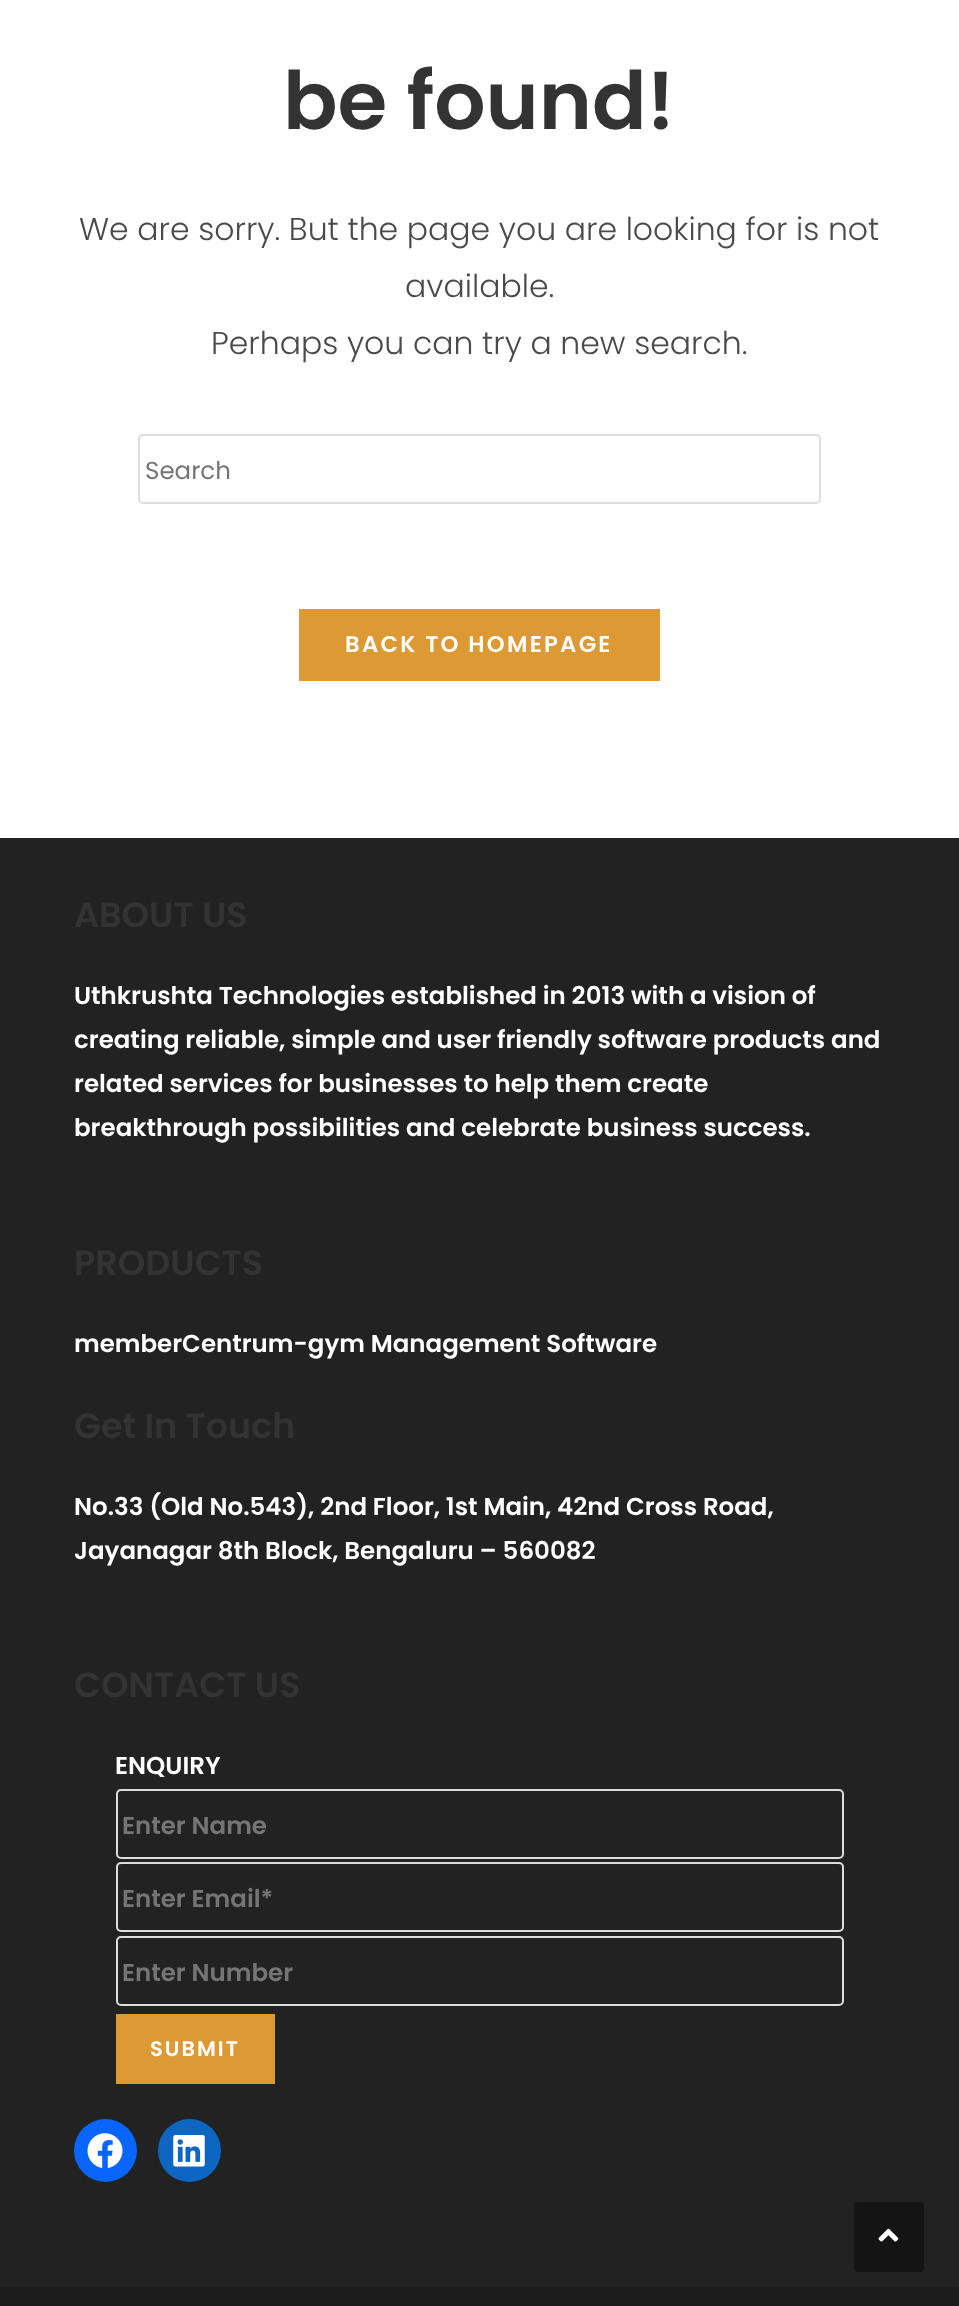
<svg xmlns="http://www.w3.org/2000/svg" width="959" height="2306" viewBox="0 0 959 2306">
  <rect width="100%" height="100%" fill="#fff"/>
  <rect x="139" y="435" width="681" height="68" rx="4" fill="none" stroke="#ddd" stroke-width="2"/>
  <path d="M299 609h361v72H299z" fill="#d93"/>
  <path d="M0 838h959v1449H0z" fill="#222"/>
  <rect x="117" y="1790" width="726" height="68" rx="4" fill="none" stroke="#ddd" stroke-width="2"/>
  <rect x="117" y="1863" width="726" height="68" rx="4" fill="none" stroke="#ddd" stroke-width="2"/>
  <rect x="117" y="1937" width="726" height="68" rx="4" fill="none" stroke="#ddd" stroke-width="2"/>
  <path d="M116 2014h159v70H116z" fill="#d93"/>
  <circle cx="105.5" cy="2150.5" r="31.5" fill="#0866ff"/>
  <image x="87" y="2133" width="36" height="35" href="img/1.png"/>
  <circle cx="189.5" cy="2150.5" r="31.5" fill="#0d66c2"/>
  <image x="173" y="2135" width="32" height="32" href="img/2.png"/>
  <path d="M0 2287h959v19H0z" fill="#1b1b1b"/>
  <rect x="854" y="2202" width="70" height="70" rx="4" fill="#141414"/>
  <image x="878" y="2228" width="21" height="14" href="img/3.png"/>
  <text x="283" y="129" font-family="Poppins" font-size="80.5" font-weight="600" fill="#333">be found!</text>
  <g font-family="Poppins" font-size="31.5" font-weight="300" fill="#4a4a4a">
    <text x="79" y="240">We are sorry. But the page you are looking for is not</text>
    <text x="405" y="297">available.</text>
    <text x="211" y="354">Perhaps you can try a new search.</text>
  </g>
  <text x="145" y="479" font-family="Poppins" font-size="24.5" fill="#757575">Search</text>
  <text x="345" y="652" font-family="Poppins" font-size="22.75" font-weight="600" letter-spacing="2.25" fill="#fff">BACK TO HOMEPAGE</text>
  <text x="74" y="927" font-family="Poppins" font-size="35" font-weight="600" fill="#333">ABOUT US</text>
  <g font-family="Poppins" font-size="24.5" font-weight="600" fill="#fff">
    <text x="74" y="1004">Uthkrushta Technologies established in 2013 with a vision of</text>
    <text x="74" y="1048">creating reliable, simple and user friendly software products and</text>
    <text x="74" y="1092">related services for businesses to help them create</text>
    <text x="74" y="1136">breakthrough possibilities and celebrate business success.</text>
  </g>
  <text x="74" y="1275" font-family="Poppins" font-size="35" font-weight="600" fill="#333">PRODUCTS</text>
  <text x="74" y="1352" font-family="Poppins" font-size="24.5" font-weight="600" fill="#fff">memberCentrum-gym Management Software</text>
  <text x="74" y="1438" font-family="Poppins" font-size="35" font-weight="600" fill="#333">Get In Touch</text>
  <g font-family="Poppins" font-size="24.5" font-weight="600" fill="#fff">
    <text x="74" y="1515">No.33 (Old No.543), 2nd Floor, 1st Main, 42nd Cross Road,</text>
    <text x="74" y="1559">Jayanagar 8th Block, Bengaluru – 560082</text>
  </g>
  <text x="74" y="1697" font-family="Poppins" font-size="35" font-weight="600" fill="#333">CONTACT US</text>
  <text x="115" y="1774" font-family="Poppins" font-size="24.5" font-weight="600" fill="#fff">ENQUIRY</text>
  <g font-family="Poppins" font-size="24.5" font-weight="600" fill="#757575">
    <text x="122" y="1834">Enter Name</text>
    <text x="122" y="1907">Enter Email*</text>
    <text x="122" y="1981">Enter Number</text>
  </g>
  <text x="150" y="2056" font-family="Poppins" font-size="21" font-weight="600" letter-spacing="2" fill="#fff">SUBMIT</text>
</svg>
